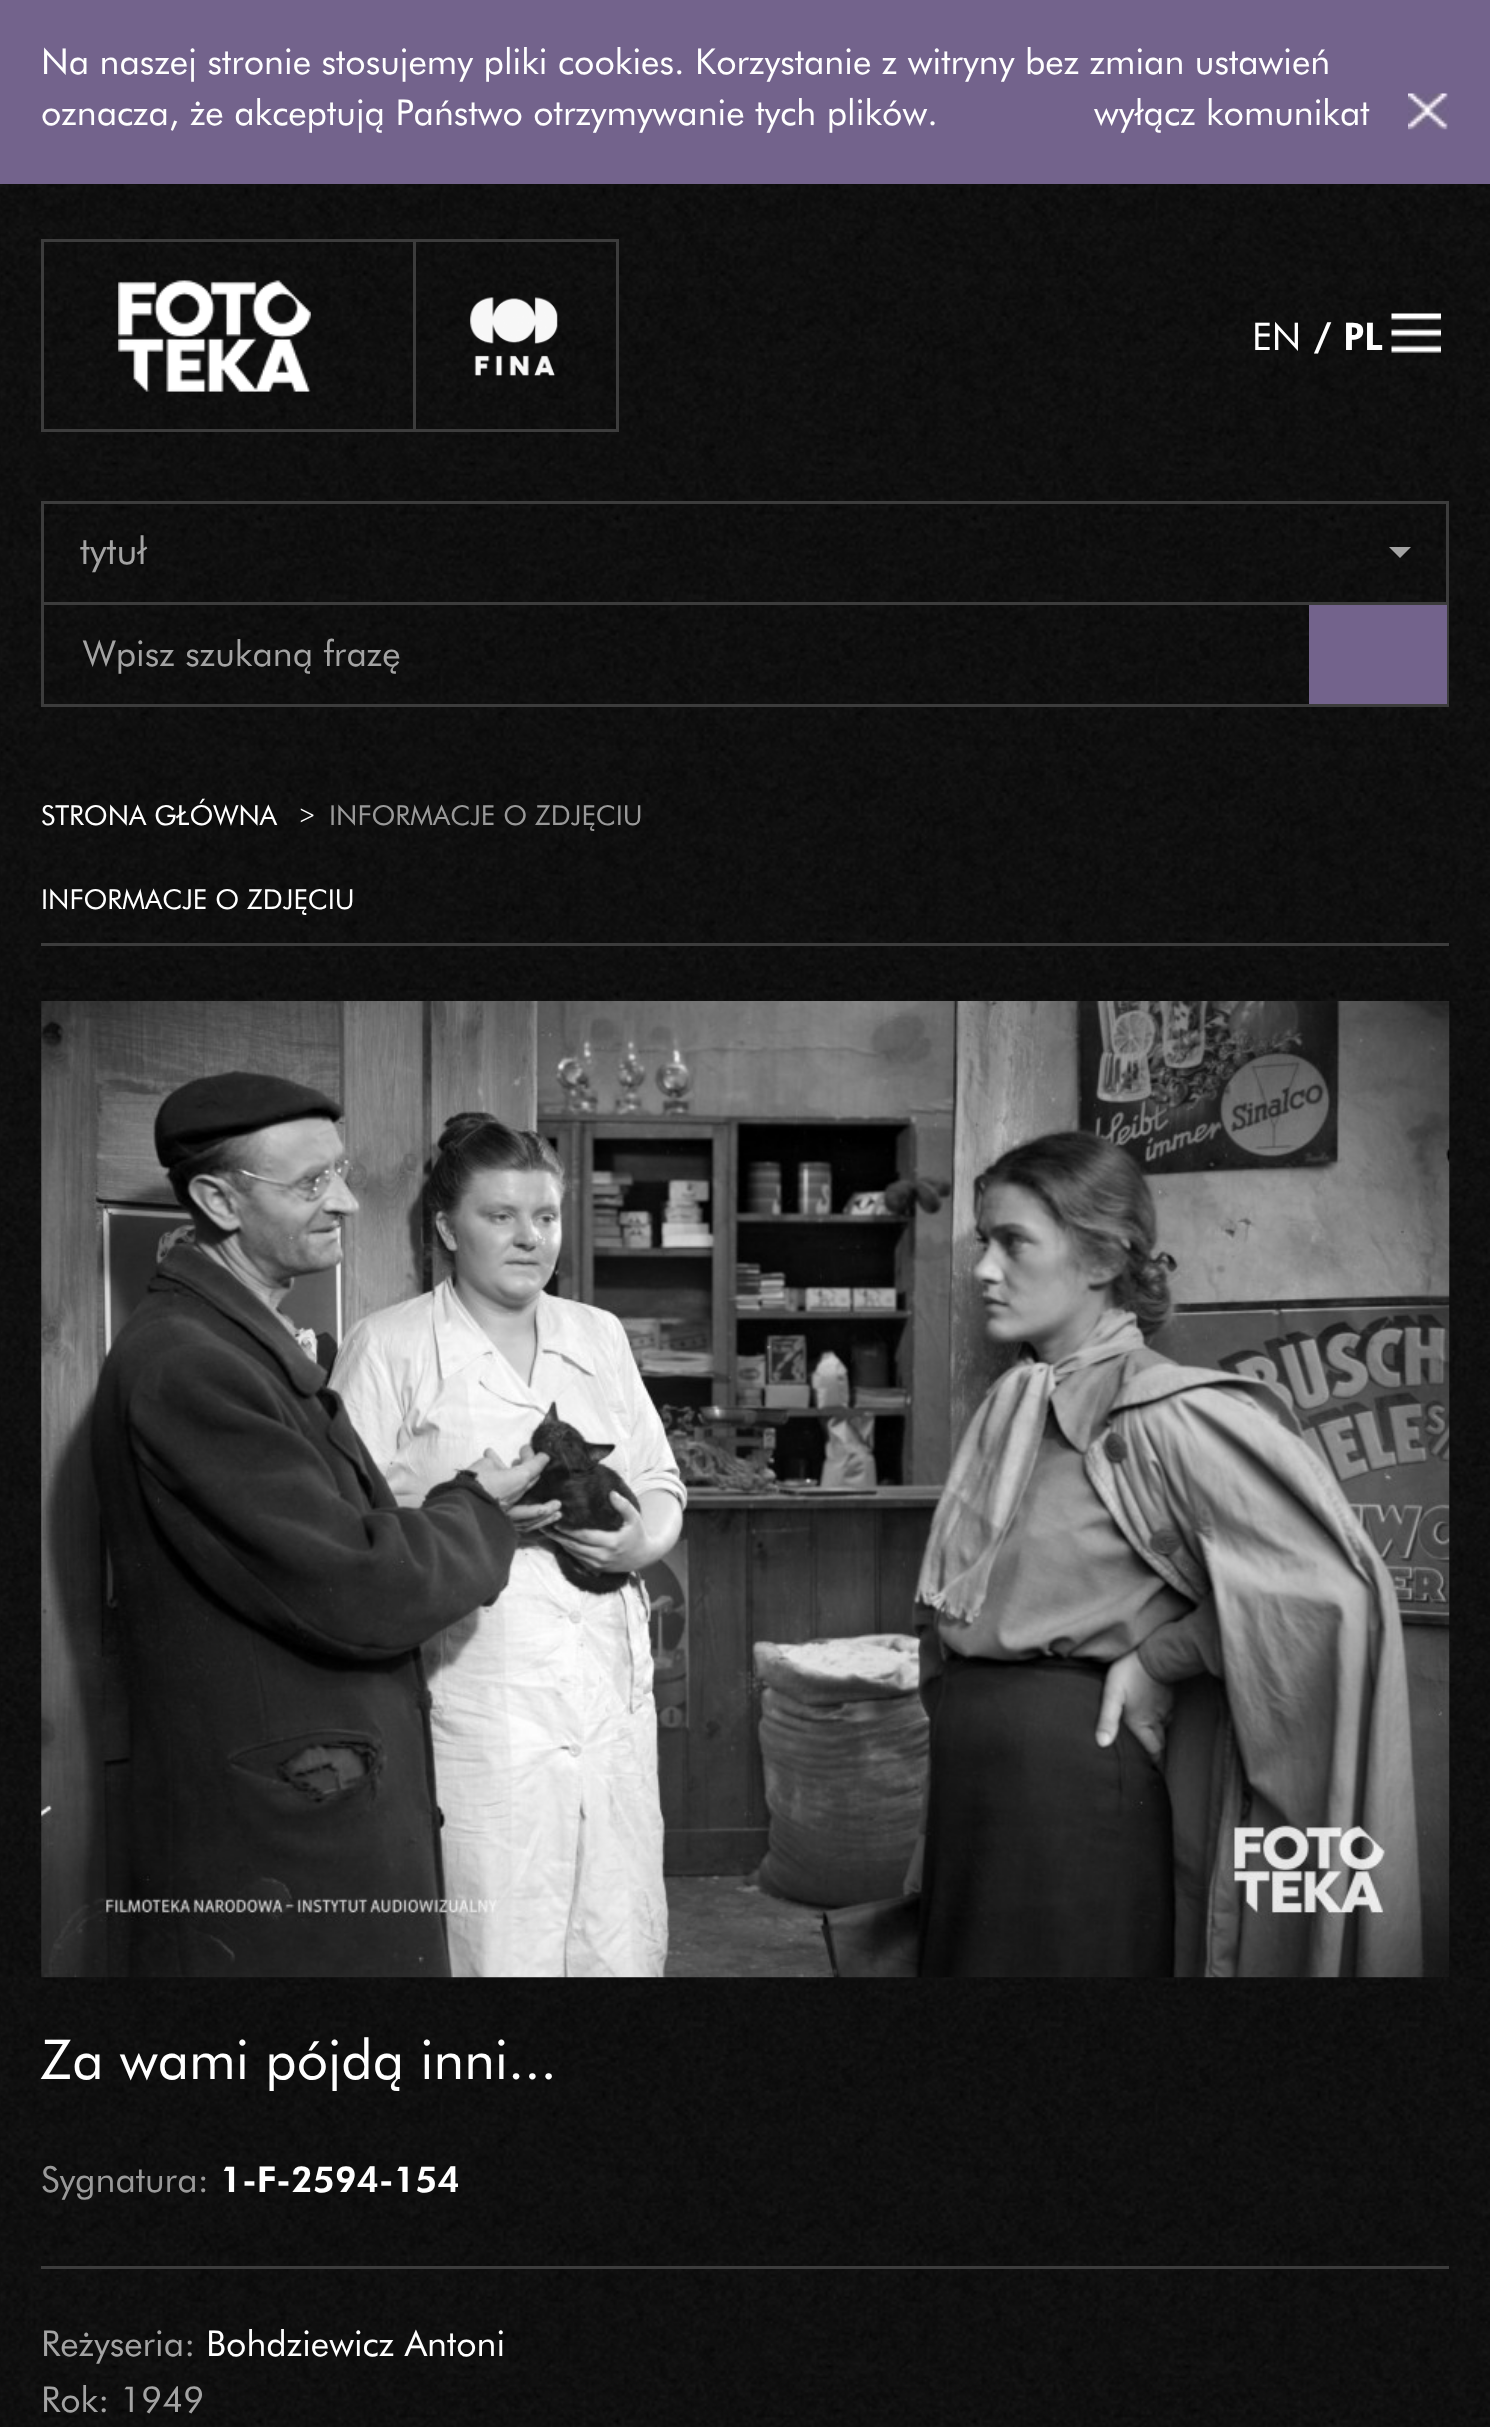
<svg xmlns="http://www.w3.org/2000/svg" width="1490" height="2427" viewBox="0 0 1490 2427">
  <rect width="100%" height="100%" fill="#fff"/>
  <image x="0" y="184" width="1490" height="2243" href="img/1.png"/>
  <path d="M0 0h1490v184H0z" fill="#73638c"/>
  <image x="1408" y="93" width="41" height="37" href="img/2.png"/>
  <path d="M42.5 240.5h575v190H42.5z" fill="none" stroke="#3c3c3c" stroke-width="3"/>
  <path d="M413 239h3v193H413z" fill="#3c3c3c"/>
  <image x="118" y="280" width="193" height="112" href="img/3.png"/>
  <image x="470" y="297" width="88" height="79" href="img/4.png"/>
  <image x="1391" y="313" width="50" height="40" href="img/5.png"/>
  <path d="M42.5 502.5h1405v203H42.5z" fill="none" stroke="#3c3c3c" stroke-width="3"/>
  <path d="M44 602h1403v3H44z" fill="#3c3c3c"/>
  <path d="M1389 547H1411L1400 558Z" fill="#a3a3a3"/>
  <path d="M1309 605h138v99H1309z" fill="#73638c"/>
  <path d="M41 943h1408v3H41z" fill="#3c3c3c"/>
  <image x="41" y="1001" width="1409" height="977" href="img/6.png"/>
  <path d="M41 2266h1408v3H41z" fill="#3c3c3c"/>
  <g font-family="Futura" font-size="35.75" fill="#fff">
    <text x="41" y="74">Na naszej stronie stosujemy pliki cookies. Korzystanie z witryny bez zmian ustawień</text>
    <text x="41" y="125">oznacza, że akceptują Państwo otrzymywanie tych plików.</text>
    <text x="1094" y="125">wyłącz komunikat</text>
  </g>
  <text x="1252" y="350" font-family="Futura" font-size="38" fill="#fff">EN</text>
  <text x="1314" y="350" font-family="Futura" font-size="38" font-weight="900" fill="#fff">/ PL</text>
  <text x="80" y="564" font-family="Futura" font-size="38" fill="#a3a3a3">tytuł</text>
  <text x="83" y="666" font-family="Futura" font-size="35.75" fill="#a3a3a3">Wpisz szukaną frazę</text>
  <g font-family="Futura" font-size="27.5" fill="#fff">
    <text x="41" y="825">STRONA GŁÓWNA</text>
    <text x="299" y="825">&gt;</text>
  </g>
  <text x="329" y="825" font-family="Futura" font-size="27.5" fill="#999">INFORMACJE O ZDJĘCIU</text>
  <text x="41" y="909" font-family="Futura" font-size="27.5" fill="#fff">INFORMACJE O ZDJĘCIU</text>
  <text x="41" y="2079" font-family="Futura" font-size="55" fill="#fff">Za wami pójdą inni...</text>
  <text x="41" y="2192" font-family="Futura" font-size="35.75" fill="#999">Sygnatura:</text>
  <text x="220" y="2192" font-family="Futura" font-size="35.75" font-weight="900" fill="#fff">1-F-2594-154</text>
  <text x="41" y="2356" font-family="Futura" font-size="35.75" fill="#a3a3a3">Reżyseria:</text>
  <text x="206" y="2356" font-family="Futura" font-size="35.75" fill="#fff">Bohdziewicz Antoni</text>
  <text x="41" y="2412" font-family="Futura" font-size="35.75" fill="#a3a3a3">Rok: 1949</text>
</svg>
